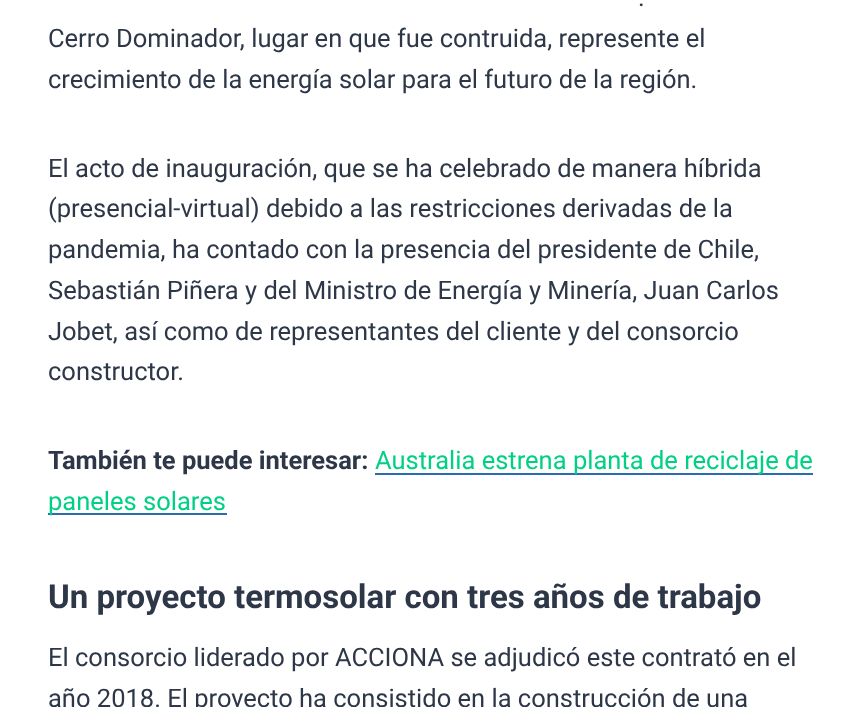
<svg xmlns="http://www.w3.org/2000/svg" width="862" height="707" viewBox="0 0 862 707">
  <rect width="100%" height="100%" fill="#fff"/>
  <path d="M375 473h438v2H375z" fill="#2b6cb0"/>
  <path d="M48 513h179v2H48z" fill="#2b6cb0"/>
  <g font-family="Roboto" font-size="25.5" fill="#2d3748">
    <text x="638" y="6">.</text>
    <text x="48" y="47">Cerro Dominador, lugar en que fue contruida, represente el</text>
    <text x="48" y="88">crecimiento de la energía solar para el futuro de la región.</text>
    <text x="48" y="177">El acto de inauguración, que se ha celebrado de manera híbrida</text>
    <text x="48" y="217">(presencial-virtual) debido a las restricciones derivadas de la</text>
    <text x="48" y="258">pandemia, ha contado con la presencia del presidente de Chile,</text>
    <text x="48" y="299">Sebastián Piñera y del Ministro de Energía y Minería, Juan Carlos</text>
    <text x="48" y="340">Jobet, así como de representantes del cliente y del consorcio</text>
    <text x="48" y="380">constructor.</text>
  </g>
  <text x="48" y="469" font-family="Roboto" font-size="25.5" font-weight="bold" fill="#2d3748">También te puede interesar:</text>
  <g font-family="Roboto" font-size="25.5" fill="#00d084">
    <text x="375" y="469">Australia estrena planta de reciclaje de</text>
    <text x="48" y="510">paneles solares</text>
  </g>
  <text x="48" y="608" font-family="Roboto" font-size="33" font-weight="bold" fill="#2d3748">Un proyecto termosolar con tres años de trabajo</text>
  <g font-family="Roboto" font-size="25.5" fill="#2d3748">
    <text x="48" y="666">El consorcio liderado por ACCIONA se adjudicó este contrató en el</text>
    <text x="48" y="707">año 2018. El proyecto ha consistido en la construcción de una</text>
  </g>
</svg>
